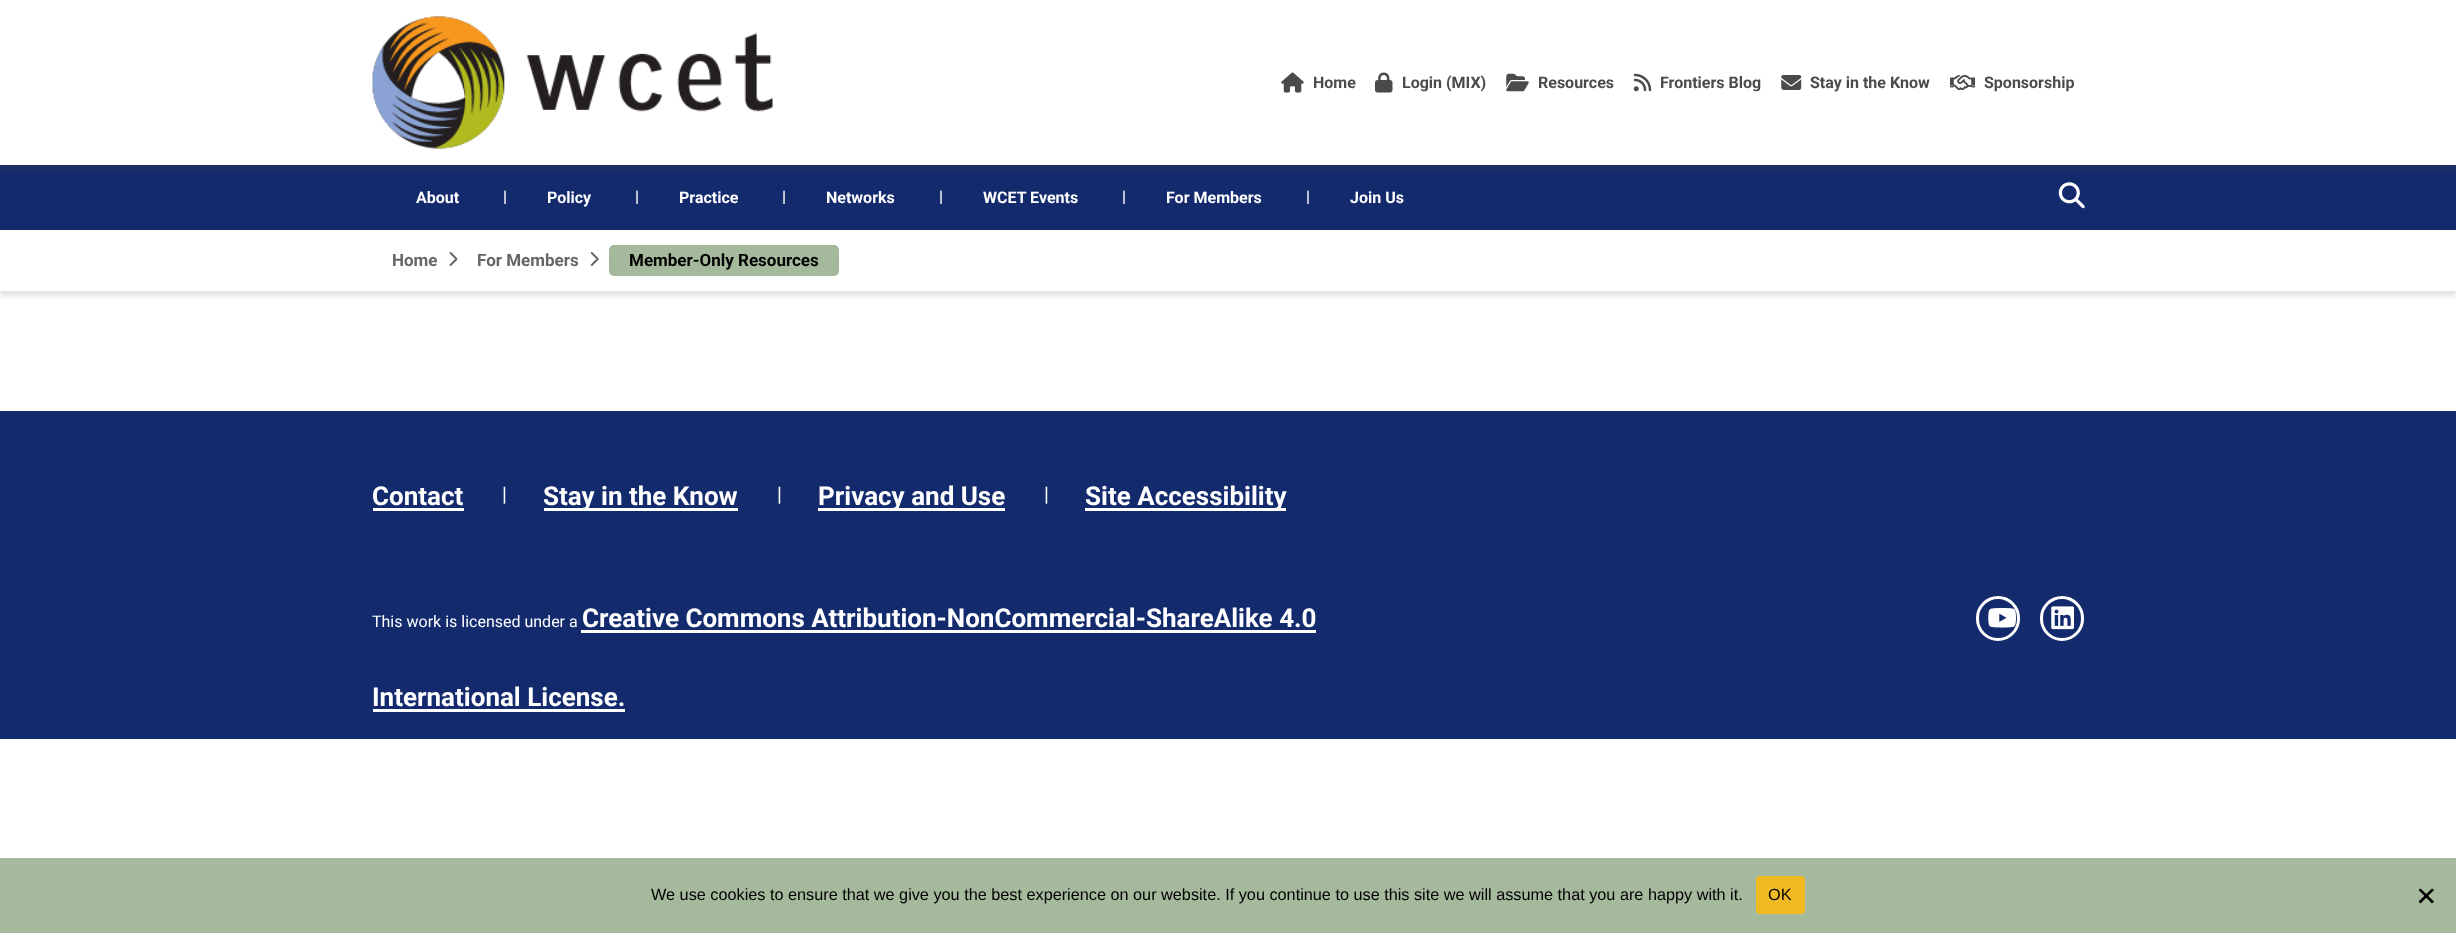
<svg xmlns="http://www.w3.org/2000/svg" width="2456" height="933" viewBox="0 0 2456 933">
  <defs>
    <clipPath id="clip1"><path d="M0 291h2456v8H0z"/></clipPath>
    <clipPath id="clip2"><path d="M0 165h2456v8H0z"/></clipPath>
  </defs>
  <rect width="100%" height="100%" fill="#fff"/>
  <g clip-path="url(#clip1)">
    <path d="M0 235h2456v61H0z" fill="#40404026" filter="blur(2.5px)"/>
  </g>
  <path d="M0 165h2456v65H0z" fill="#132a6d"/>
  <g clip-path="url(#clip2)">
    <path d="M0 5h2456v165H0z" fill="#40404040" filter="blur(2.5px)"/>
  </g>
  <image x="372" y="16" width="401" height="133" href="img/1.png"/>
  <image x="1281" y="72" width="23" height="21" href="img/2.png"/>
  <image x="1375" y="72" width="18" height="21" href="img/3.png"/>
  <image x="1506" y="73" width="23" height="19" href="img/4.png"/>
  <image x="1633" y="73" width="19" height="19" href="img/5.png"/>
  <image x="1781" y="75" width="21" height="15" href="img/6.png"/>
  <image x="1950" y="75" width="25" height="16" href="img/7.png"/>
  <image x="2058" y="182" width="27" height="27" href="img/8.png"/>
  <image x="449" y="252" width="9" height="14" href="img/9.png"/>
  <image x="590" y="252" width="9" height="14" href="img/10.png"/>
  <rect x="609" y="245" width="230" height="31" rx="5" fill="#a5b99c"/>
  <path d="M0 411h2456v328H0z" fill="#132a6d"/>
  <path d="M373 508h91v3H373z" fill="#fff"/>
  <path d="M544 508h194v3H544z" fill="#fff"/>
  <path d="M818 508h187v3H818z" fill="#fff"/>
  <path d="M1085 508h201v3H1085z" fill="#fff"/>
  <path d="M581 630h735v3H581z" fill="#fff"/>
  <path d="M373 709h252v3H373z" fill="#fff"/>
  <rect x="1977.5" y="597.5" width="41" height="42" rx="20.5" fill="none" stroke="#fff" stroke-width="3"/>
  <image x="1988" y="608" width="28" height="20" href="img/11.png"/>
  <rect x="2041.5" y="597.5" width="41" height="42" rx="20.5" fill="none" stroke="#fff" stroke-width="3"/>
  <image x="2051" y="606" width="23" height="24" href="img/12.png"/>
  <path d="M0 858h2456v75H0z" fill="#a5b99c"/>
  <rect x="1756" y="876" width="49" height="38" rx="4" fill="#f1b923"/>
  <path d="M2432 888.5L2434 890L2420.5 903.5L2418.5 901.5Z" fill="#000"/>
  <path d="M2418.5 890L2420.5 888.5L2434 901.5L2432 903.5Z" fill="#000"/>
  <g font-family="Roboto" font-size="16" font-weight="bold" fill="#4b4c49">
    <text x="1313" y="88">Home</text>
    <text x="1402" y="88">Login (MIX)</text>
    <text x="1538" y="88">Resources</text>
    <text x="1660" y="88">Frontiers Blog</text>
    <text x="1810" y="88">Stay in the Know</text>
    <text x="1984" y="88">Sponsorship</text>
  </g>
  <g font-family="Roboto" font-size="16" font-weight="bold" fill="#fff">
    <text x="416" y="203">About</text>
    <text x="503" y="202">|</text>
    <text x="547" y="203">Policy</text>
    <text x="635" y="202">|</text>
    <text x="679" y="203">Practice</text>
    <text x="782" y="202">|</text>
    <text x="826" y="203">Networks</text>
    <text x="939" y="202">|</text>
    <text x="983" y="203">WCET Events</text>
    <text x="1122" y="202">|</text>
    <text x="1166" y="203">For Members</text>
    <text x="1306" y="202">|</text>
    <text x="1350" y="203">Join Us</text>
  </g>
  <g font-family="Roboto" font-size="17" font-weight="bold" fill="#666">
    <text x="392" y="266">Home</text>
    <text x="477" y="266">For Members</text>
  </g>
  <text x="629" y="266" font-family="Roboto" font-size="17" font-weight="bold" fill="#000">Member-Only Resources</text>
  <text x="372" y="505" font-family="Roboto" font-size="26" font-weight="bold" fill="#fff">Contact</text>
  <text x="502" y="501" font-family="Roboto" font-size="20" fill="#fff">|</text>
  <text x="543" y="505" font-family="Roboto" font-size="26" font-weight="bold" fill="#fff">Stay in the Know</text>
  <text x="777" y="501" font-family="Roboto" font-size="20" fill="#fff">|</text>
  <text x="818" y="505" font-family="Roboto" font-size="26" font-weight="bold" fill="#fff">Privacy and Use</text>
  <text x="1044" y="501" font-family="Roboto" font-size="20" fill="#fff">|</text>
  <text x="1085" y="505" font-family="Roboto" font-size="26" font-weight="bold" fill="#fff">Site Accessibility</text>
  <text x="372" y="627" font-family="Roboto" font-size="16" fill="#fff">This work is licensed under a</text>
  <g font-family="Roboto" font-size="26" font-weight="bold" fill="#fff">
    <text x="582" y="627">Creative Commons Attribution-NonCommercial-ShareAlike 4.0</text>
    <text x="372" y="706">International License.</text>
  </g>
  <g font-family="Liberation Sans" font-size="16.25" fill="#000">
    <text x="651" y="900">We use cookies to ensure that we give you the best experience on our website. If you continue to use this site we will assume that you are happy with it.</text>
    <text x="1768" y="900">OK</text>
  </g>
</svg>
